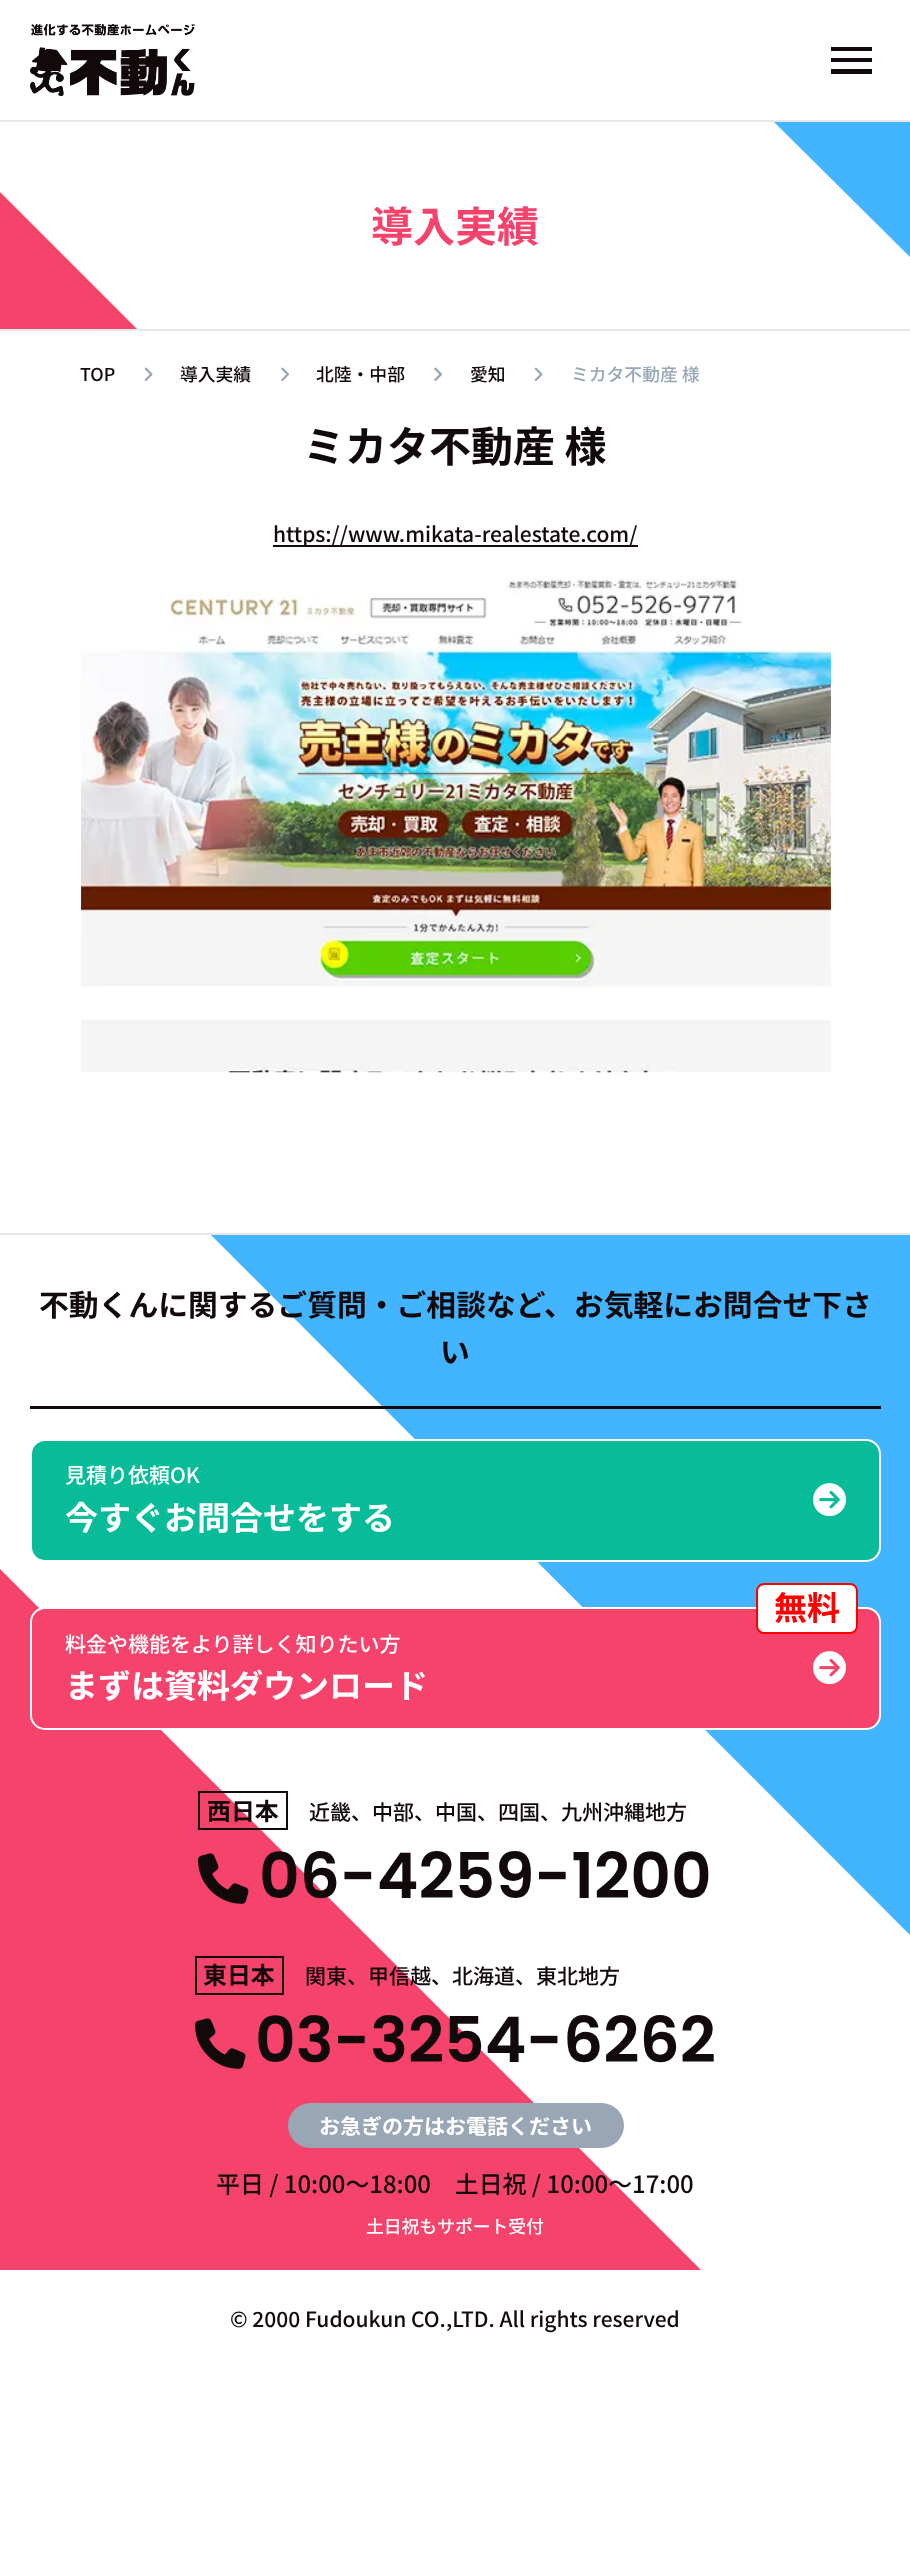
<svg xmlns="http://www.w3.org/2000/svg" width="910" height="2566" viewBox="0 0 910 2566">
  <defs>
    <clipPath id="clip1"><path d="M831 47h41v27H831z"/></clipPath>
  </defs>
  <rect width="100%" height="100%" fill="#fff"/>
  <image x="30" y="24" width="165" height="72" href="img/1.png"/>
  <g clip-path="url(#clip1)">
    <path d="M831 74H872V69H831ZM831 62H872V58H831ZM831 46V51H872V46Z" fill="#11090a"/>
  </g>
  <path d="M0 192L137 329H0Z" fill="#f5436c"/>
  <path d="M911 258L774 122H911Z" fill="#43b4ff"/>
  <path d="M0 120h910v2H0z" fill="#e6e8ee"/>
  <path d="M0 329h910v2H0z" fill="#e6e8ee"/>
  <image x="144" y="367" width="9" height="14" href="img/2.png"/>
  <image x="281" y="367" width="8" height="14" href="img/3.png"/>
  <image x="434" y="367" width="8" height="14" href="img/3.png"/>
  <image x="534" y="367" width="9" height="14" href="img/2.png"/>
  <path d="M273 545h365v2H273z" fill="#11090a"/>
  <image x="81" y="577" width="750" height="496" href="img/4.png"/>
  <path d="M0 1569L701 2270H0Z" fill="#f5436c"/>
  <path d="M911 1936L210 1234H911Z" fill="#43b4ff"/>
  <path d="M0 1233h910v2H0z" fill="#e6e8ee"/>
  <path d="M30 1406h851v3H30z" fill="#11090a"/>
  <rect x="31" y="1440" width="849" height="121" rx="14" fill="#08bc9a" stroke="#fff" stroke-width="2"/>
  <image x="813" y="1483" width="33" height="34" href="img/5.png"/>
  <rect x="31" y="1608" width="849" height="121" rx="14" fill="#f5436c" stroke="#fff" stroke-width="2"/>
  <rect x="757" y="1584" width="100" height="49" rx="7" fill="#fff" stroke="#f00" stroke-width="2"/>
  <image x="813" y="1651" width="33" height="34" href="img/6.png"/>
  <path d="M199 1792h88v37H199z" fill="none" stroke="#11090a" stroke-width="2"/>
  <image x="198" y="1853" width="51" height="51" href="img/7.png"/>
  <path d="M196 1957h87v37H196z" fill="none" stroke="#11090a" stroke-width="2"/>
  <image x="195" y="2018" width="51" height="51" href="img/7.png"/>
  <rect x="288" y="2103" width="336" height="45" rx="22.5" fill="#98a6b5"/>
  <text x="371" y="242" font-family="Noto Sans JP" font-size="42" font-weight="bold" fill="#f5436c">導入実績</text>
  <g font-family="Noto Sans JP" font-size="17.8" font-weight="500" fill="#11090a">
    <text x="80" y="381">TOP</text>
    <text x="180" y="381">導入実績</text>
    <text x="316" y="381">北陸・中部</text>
    <text x="470" y="381">愛知</text>
  </g>
  <text x="571" y="381" font-family="Noto Sans JP" font-size="17.8" font-weight="500" fill="#98a6b5">ミカタ不動産 様</text>
  <text x="303" y="462" font-family="Noto Sans JP" font-size="42" font-weight="bold" fill="#11090a">ミカタ不動産 様</text>
  <text x="273" y="542" font-family="Noto Sans JP" font-size="21" font-weight="500" fill="#11090a">https://www.mikata-realestate.com/</text>
  <g font-family="Noto Sans JP" font-size="29.8" font-weight="bold" fill="#11090a">
    <text x="39" y="1316">不動くんに関するご質問・ご相談など、お気軽にお問合せ下さ</text>
    <text x="440" y="1363">い</text>
  </g>
  <text x="65" y="1483" font-family="Noto Sans JP" font-size="21" font-weight="500" fill="#fff">見積り依頼OK</text>
  <text x="65" y="1530" font-family="Noto Sans JP" font-size="33" font-weight="bold" fill="#fff">今すぐお問合せをする</text>
  <text x="774" y="1620" font-family="Noto Sans JP" font-size="33" font-weight="bold" fill="#f00">無料</text>
  <text x="65" y="1652" font-family="Noto Sans JP" font-size="21" font-weight="500" fill="#fff">料金や機能をより詳しく知りたい方</text>
  <text x="65" y="1698" font-family="Noto Sans JP" font-size="33" font-weight="bold" fill="#fff">まずは資料ダウンロード</text>
  <text x="207" y="1820" font-family="Noto Sans JP" font-size="23.9" font-weight="bold" fill="#11090a">西日本</text>
  <text x="309" y="1820" font-family="Noto Sans JP" font-size="21" font-weight="500" fill="#11090a">近畿、中部、中国、四国、九州沖縄地方</text>
  <text x="259" y="1898" font-family="Poppins" font-size="63" font-weight="600" fill="#11090a">06-4259-1200</text>
  <text x="203" y="1984" font-family="Noto Sans JP" font-size="23.9" font-weight="bold" fill="#11090a">東日本</text>
  <text x="305" y="1984" font-family="Noto Sans JP" font-size="21" font-weight="500" fill="#11090a">関東、甲信越、北海道、東北地方</text>
  <text x="255" y="2062" font-family="Poppins" font-size="63" font-weight="600" fill="#11090a">03-3254-6262</text>
  <text x="319" y="2134" font-family="Noto Sans JP" font-size="21" font-weight="bold" fill="#fff">お急ぎの方はお電話ください</text>
  <text x="216" y="2193" font-family="Noto Sans JP" font-size="23.9" font-weight="500" fill="#11090a">平日 / 10:00～18:00　土日祝 / 10:00～17:00</text>
  <text x="366" y="2233" font-family="Noto Sans JP" font-size="17.8" font-weight="500" fill="#fff">土日祝もサポート受付</text>
  <text x="230" y="2327" font-family="Noto Sans JP" font-size="21" font-weight="500" fill="#11090a">© 2000 Fudoukun CO.,LTD. All rights reserved</text>
</svg>
